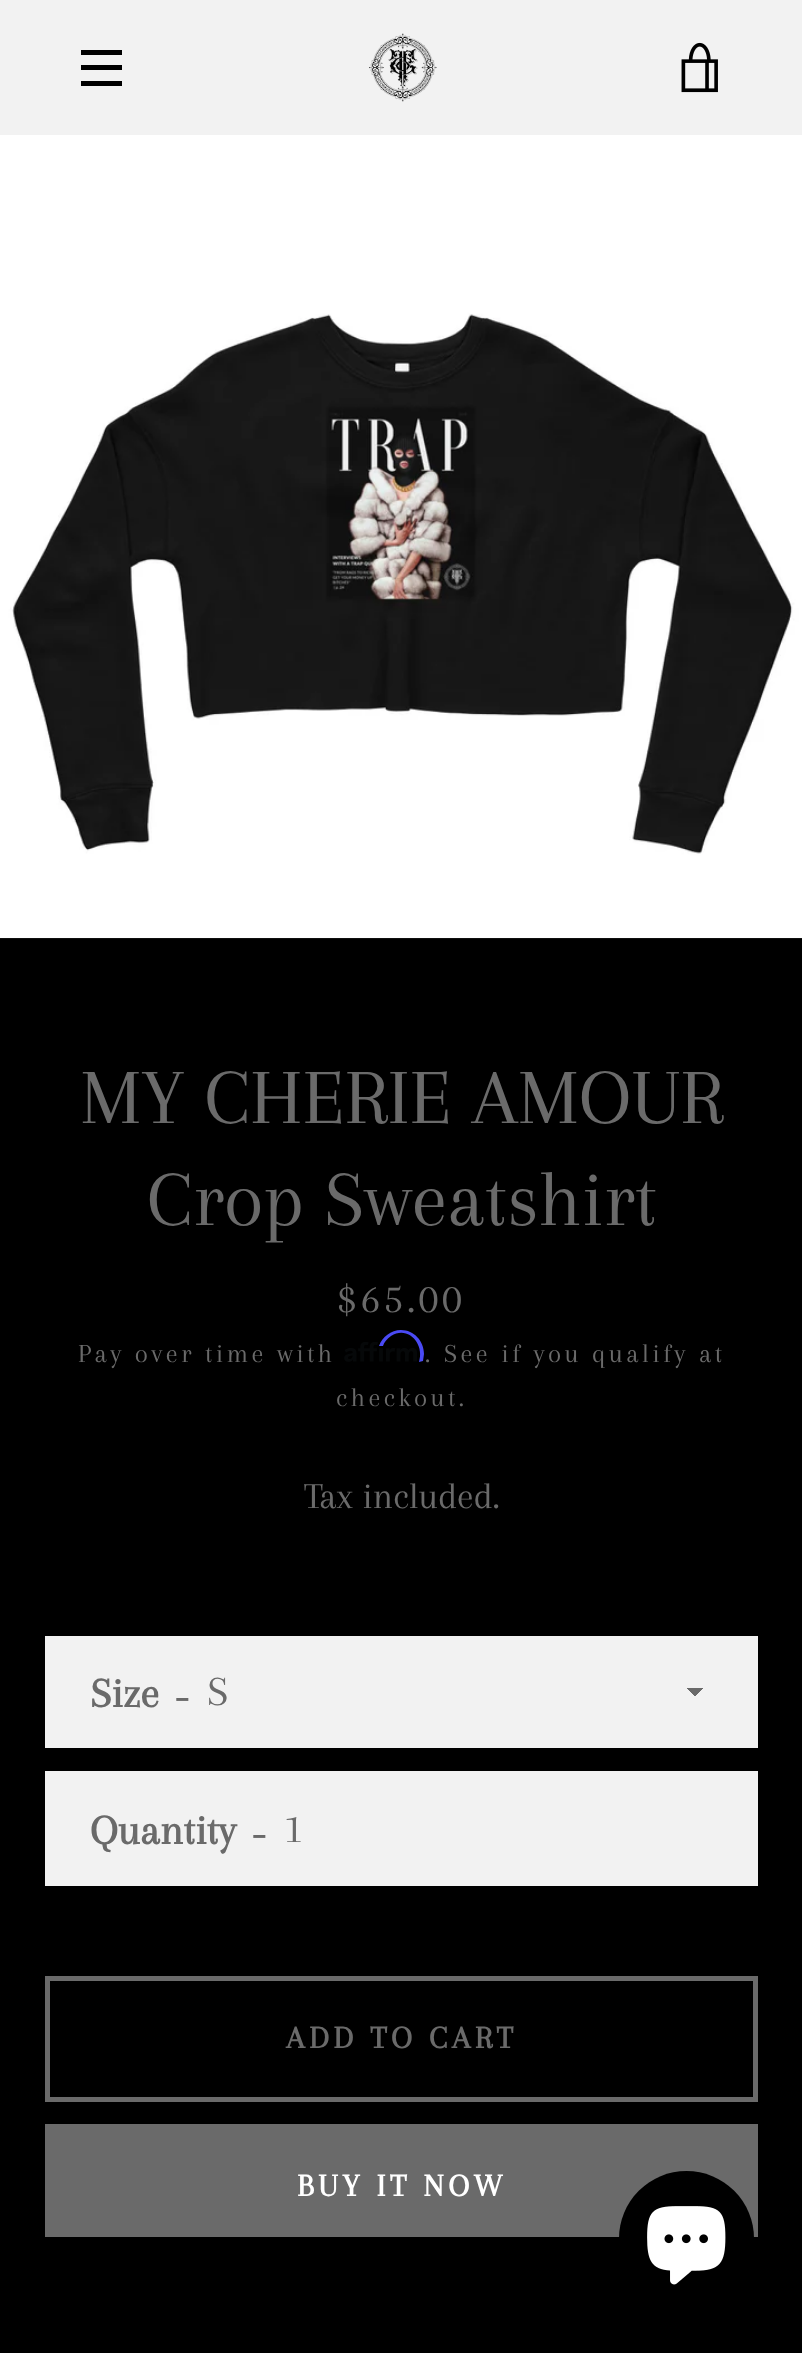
<svg xmlns="http://www.w3.org/2000/svg" width="802" height="2353" viewBox="0 0 802 2353">
  <defs>
    <linearGradient id="g1" gradientUnits="userSpaceOnUse" x1="695" y1="1688" x2="704" y2="1697"><stop offset="0.5" stop-color="#6a6a6a"/><stop offset="0.5" stop-color="#f2f2f2"/></linearGradient>
    <linearGradient id="g2" gradientUnits="userSpaceOnUse" x1="686" y1="1697" x2="695" y2="1688"><stop offset="0.5" stop-color="#f2f2f2"/><stop offset="0.5" stop-color="#6a6a6a"/></linearGradient>
  </defs>
  <rect width="100%" height="100%" fill="#000"/>
  <path d="M0 0h802v135H0z" fill="#f2f2f2"/>
  <path d="M81 50h41v5H81z" fill="#000"/>
  <path d="M81 65h41v5H81z" fill="#000"/>
  <path d="M81 81h41v5H81z" fill="#000"/>
  <image x="369" y="33" width="68" height="69" href="img/1.png"/>
  <image x="681" y="42" width="37" height="51" href="img/2.png"/>
  <image x="0" y="135" width="802" height="804" href="img/3.png"/>
  <image x="344" y="1342" width="73" height="20" href="img/4.png"/>
  <path d="M401 1330C391 1330 382 1337 379 1346H383C384 1342 387 1339 391 1336C408 1325 425 1344 419 1362L423 1361L424 1354C424 1341 414 1330 401 1330Z" fill="#4a4af4"/>
  <path d="M45 1636h713v112H45z" fill="#f2f2f2"/>
  <path d="M695 1688h9v8H695z" fill="url(#g1)"/>
  <path d="M686 1688h9v8H686z" fill="url(#g2)"/>
  <path d="M45 1771h713v115H45z" fill="#f2f2f2"/>
  <path d="M47.5 1978.5h708v121H47.5z" fill="none" stroke="#6a6a6a" stroke-width="5"/>
  <path d="M45 2124h713v113H45z" fill="#6a6a6a"/>
  <circle cx="686.5" cy="2238.5" r="67.5" fill="#000"/>
  <image x="647" y="2206" width="79" height="79" href="img/5.png"/>
  <g font-family="Arapey" font-size="81" fill="#6a6a6a">
    <text x="80" y="1123">MY CHERIE AMOUR</text>
    <text x="147" y="1225">Crop Sweatshirt</text>
  </g>
  <text x="337" y="1312" font-family="Arapey" font-size="43" letter-spacing="3.4" fill="#6a6a6a">$65.00</text>
  <g font-family="Arapey" font-size="27" letter-spacing="3.4" fill="#6a6a6a">
    <text x="78" y="1362">Pay over time with</text>
    <text x="425" y="1362">. See if you qualify at</text>
    <text x="336" y="1406">checkout.</text>
  </g>
  <text x="304" y="1508" font-family="Arapey" font-size="37.75" fill="#6a6a6a">Tax included.</text>
  <g font-family="Arapey" font-size="43" font-weight="bold" fill="#6a6a6a">
    <text x="90" y="1707">Size</text>
    <text x="175" y="1710">-</text>
  </g>
  <text x="207" y="1705" font-family="Arapey" font-size="43" fill="#6a6a6a">S</text>
  <g font-family="Arapey" font-size="43" font-weight="bold" fill="#6a6a6a">
    <text x="90" y="1844">Quantity</text>
    <text x="252" y="1847">-</text>
  </g>
  <text x="284" y="1842" font-family="Arapey" font-size="43" fill="#6a6a6a">1</text>
  <text x="286" y="2048" font-family="Arapey" font-size="32.5" font-weight="bold" letter-spacing="4.5" fill="#6a6a6a">ADD TO CART</text>
  <text x="297" y="2196" font-family="Arapey" font-size="32.5" font-weight="bold" letter-spacing="4.5" fill="#fff">BUY IT NOW</text>
</svg>
